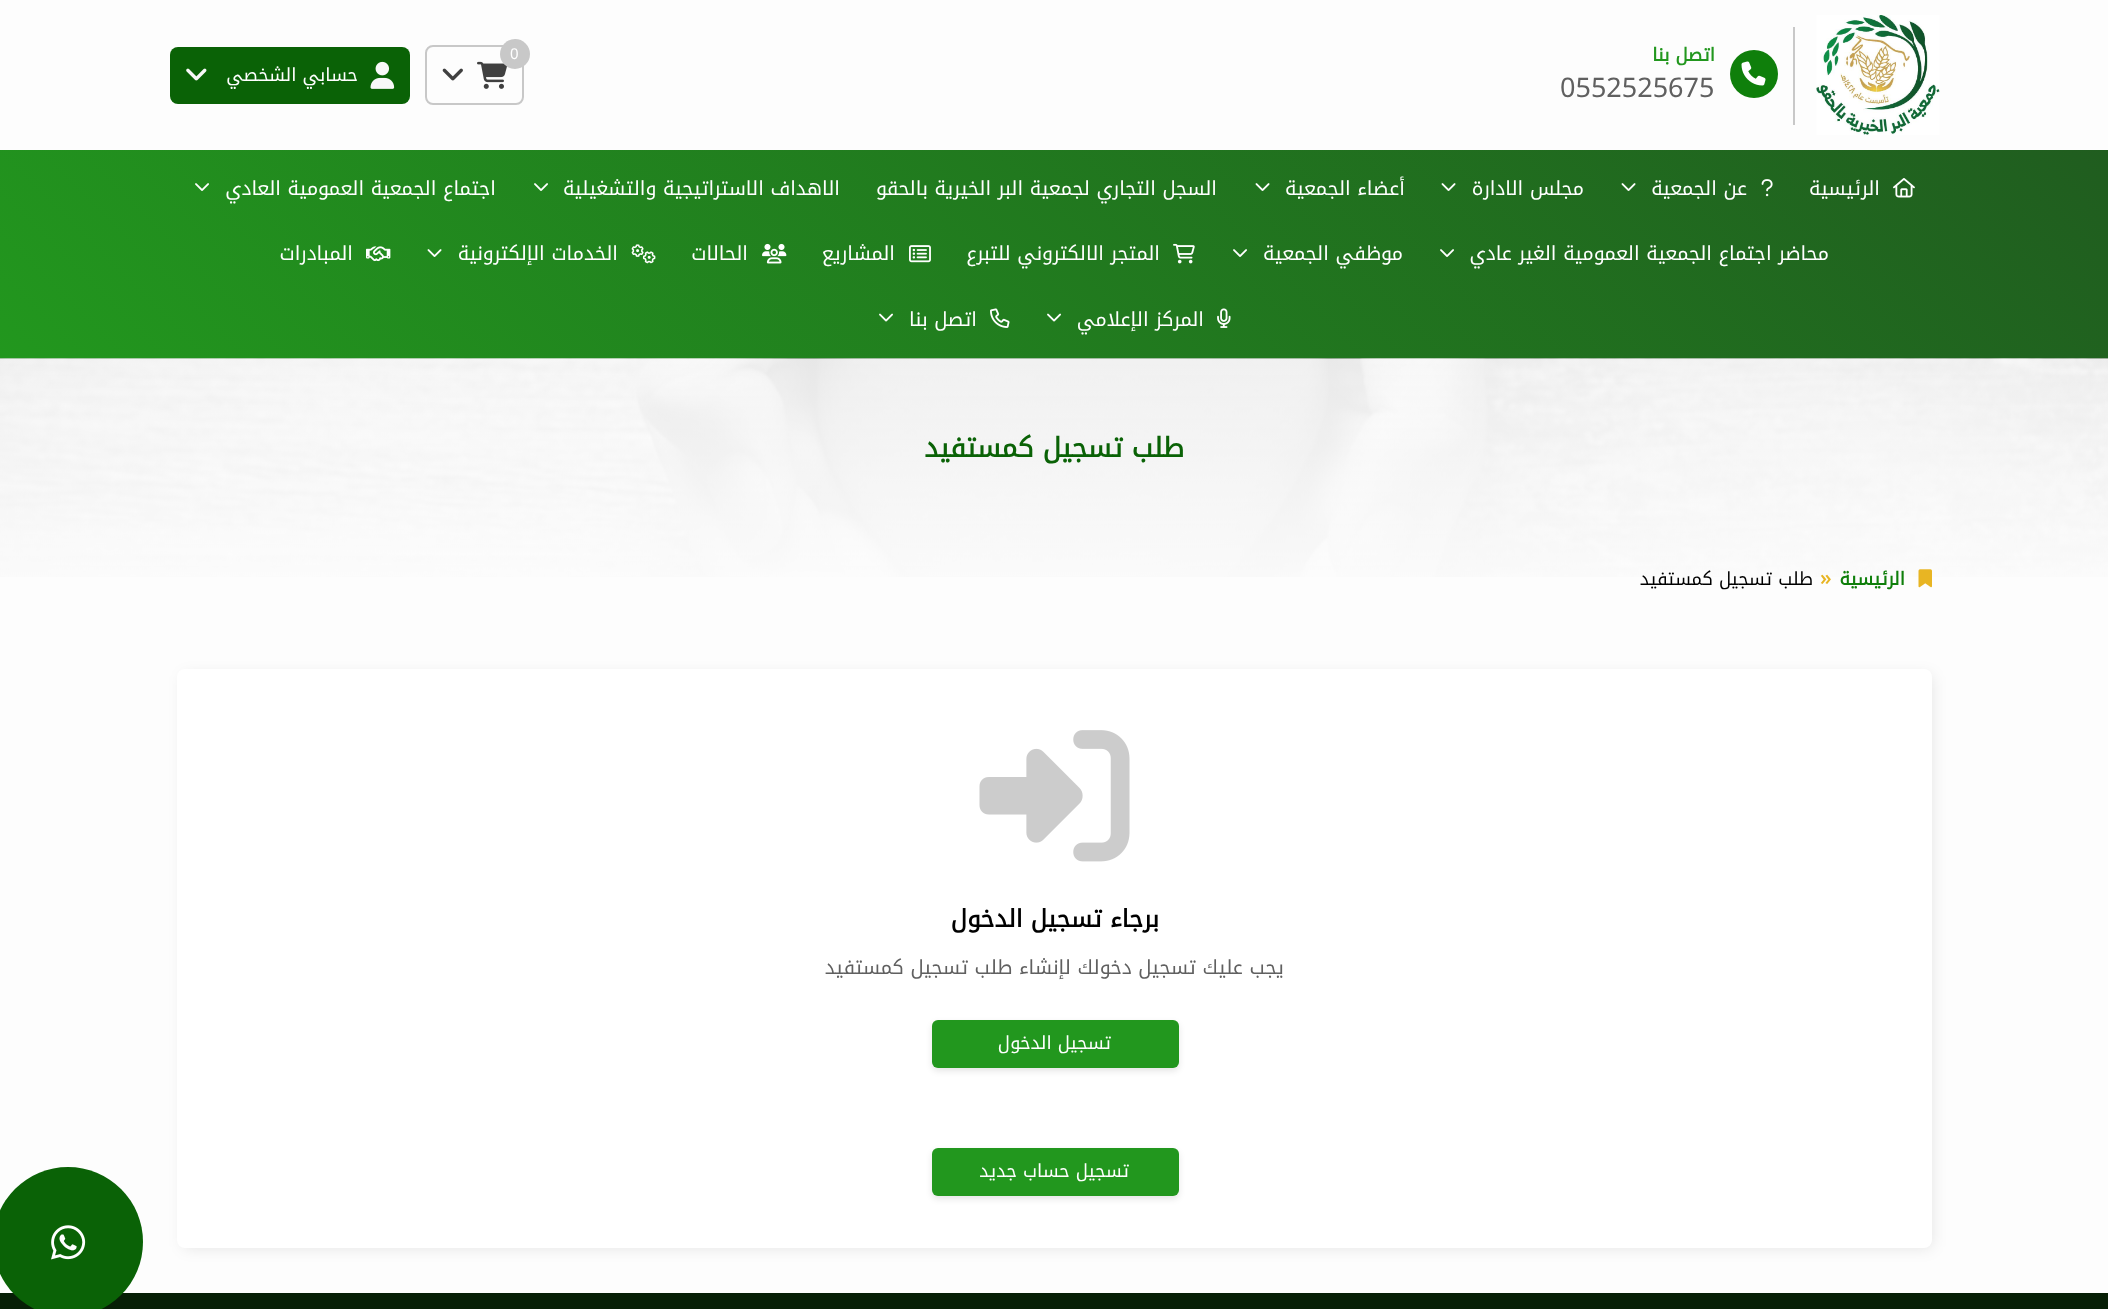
<svg xmlns="http://www.w3.org/2000/svg" width="2108" height="1309" viewBox="0 0 2108 1309">
  <defs>
    <linearGradient id="g1" gradientUnits="userSpaceOnUse" x1="475" y1="834" x2="1634" y2="-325"><stop offset="0" stop-color="#22971e"/><stop offset="1" stop-color="#205d1f"/></linearGradient>
  </defs>
  <rect width="100%" height="100%" fill="#fdfdfd"/>
  <image x="1816" y="15" width="124" height="120" href="img/1.png"/>
  <path d="M1793 27h2v98H1793z" fill="#c8c8c8"/>
  <circle cx="1754" cy="74" r="24" fill="#0f7f0b"/>
  <image x="1741" y="61" width="25" height="25" href="img/2.png"/>
  <rect x="426" y="46" width="97" height="58" rx="7" fill="none" stroke="#c8c8c8" stroke-width="2"/>
  <image x="477" y="61" width="30" height="28" href="img/3.png"/>
  <circle cx="515" cy="54" r="15" fill="#c8c8c8"/>
  <image x="442" y="68" width="21" height="13" href="img/4.png"/>
  <rect x="170" y="47" width="240" height="57" rx="8" fill="#0a6206"/>
  <image x="370" y="61" width="25" height="28" href="img/5.png"/>
  <image x="186" y="68" width="21" height="13" href="img/6.png"/>
  <path d="M0 150h2108v209H0z" fill="url(#g1)"/>
  <image x="1893" y="178" width="22" height="20" href="img/7.png"/>
  <image x="1761" y="179" width="12" height="18" href="img/8.png"/>
  <image x="1621" y="183" width="15" height="8" href="img/9.png"/>
  <image x="1441" y="183" width="15" height="8" href="img/10.png"/>
  <image x="1255" y="183" width="15" height="8" href="img/11.png"/>
  <image x="534" y="183" width="14" height="8" href="img/12.png"/>
  <image x="195" y="183" width="14" height="8" href="img/13.png"/>
  <image x="1440" y="249" width="14" height="8" href="img/14.png"/>
  <image x="1233" y="249" width="14" height="8" href="img/15.png"/>
  <image x="1173" y="243" width="22" height="21" href="img/16.png"/>
  <image x="909" y="245" width="22" height="18" href="img/17.png"/>
  <image x="762" y="243" width="25" height="21" href="img/18.png"/>
  <image x="631" y="244" width="25" height="20" href="img/19.png"/>
  <image x="427" y="249" width="15" height="8" href="img/20.png"/>
  <image x="366" y="246" width="25" height="16" href="img/21.png"/>
  <image x="1217" y="308" width="14" height="20" href="img/22.png"/>
  <image x="1047" y="313" width="14" height="9" href="img/23.png"/>
  <image x="990" y="308" width="20" height="20" href="img/24.png"/>
  <image x="879" y="313" width="14" height="9" href="img/25.png"/>
  <image x="0" y="358" width="2108" height="219" href="img/26.png"/>
  <image x="1918" y="569" width="14" height="19" href="img/27.png"/>
  <rect x="183" y="675" width="1749" height="573" rx="5" fill="#0000001a" filter="blur(7.5px)"/>
  <rect x="177" y="669" width="1755" height="579" rx="8" fill="#fff"/>
  <image x="979" y="730" width="151" height="132" href="img/28.png"/>
  <rect x="932" y="1023" width="247" height="48" rx="6" fill="#0000001a" filter="blur(3px)"/>
  <rect x="932" y="1020" width="247" height="48" rx="6" fill="#22971e"/>
  <rect x="932" y="1151" width="247" height="48" rx="6" fill="#0000001a" filter="blur(3px)"/>
  <rect x="932" y="1148" width="247" height="48" rx="6" fill="#22971e"/>
  <path d="M0 1293h2108v16H0z" fill="#071f06"/>
  <circle cx="68" cy="1242" r="75" fill="#0a6206"/>
  <image x="51" y="1225" width="35" height="35" href="img/29.png"/>
  <text x="1715" y="61" font-family="Noto Kufi Arabic" font-size="18" font-weight="bold" direction="rtl" fill="#22971e">اتصل بنا</text>
  <text x="1560" y="97" font-family="Noto Kufi Arabic" font-size="27" fill="#606060">0552525675</text>
  <text x="510" y="59" font-family="Noto Kufi Arabic" font-size="15" fill="#fff">0</text>
  <text x="358" y="81" font-family="Noto Kufi Arabic" font-size="18" direction="rtl" fill="#fff">حسابي الشخصي</text>
  <g font-family="Noto Kufi Arabic" font-size="19.5" direction="rtl" fill="#fff">
    <text x="1880" y="195">الرئيسية</text>
    <text x="1747" y="195">عن الجمعية</text>
    <text x="1584" y="195">مجلس الادارة</text>
    <text x="1405" y="195">أعضاء الجمعية</text>
    <text x="1217" y="195">السجل التجاري لجمعية البر الخيرية بالحقو</text>
    <text x="840" y="195">الاهداف الاستراتيجية والتشغيلية</text>
    <text x="496" y="195">اجتماع الجمعية العمومية العادي</text>
    <text x="1829" y="260">محاضر اجتماع الجمعية العمومية الغير عادي</text>
    <text x="1403" y="260">موظفي الجمعية</text>
    <text x="1160" y="260">المتجر الالكتروني للتبرع</text>
    <text x="895" y="260">المشاريع</text>
    <text x="748" y="260">الحالات</text>
    <text x="618" y="260">الخدمات الإلكترونية</text>
    <text x="353" y="260">المبادرات</text>
    <text x="1204" y="326">المركز الإعلامي</text>
    <text x="977" y="326">اتصل بنا</text>
  </g>
  <text x="1184" y="457" font-family="Noto Kufi Arabic" font-size="27" font-weight="bold" direction="rtl" fill="#0a6206">طلب تسجيل كمستفيد</text>
  <text x="1905" y="585" font-family="Noto Kufi Arabic" font-size="18" font-weight="bold" direction="rtl" fill="#0f7f0b">الرئيسية</text>
  <text x="1820" y="585" font-family="Open Sans" font-size="21" font-weight="600" fill="#e8b523">»</text>
  <text x="1813" y="585" font-family="Noto Kufi Arabic" font-size="18" direction="rtl" fill="#000">طلب تسجيل كمستفيد</text>
  <text x="1159" y="927" font-family="Noto Kufi Arabic" font-size="24" font-weight="bold" direction="rtl" fill="#000">برجاء تسجيل الدخول</text>
  <text x="1284" y="974" font-family="Noto Kufi Arabic" font-size="19.5" direction="rtl" fill="#606060">يجب عليك تسجيل دخولك لإنشاء طلب تسجيل كمستفيد</text>
  <g font-family="Noto Kufi Arabic" font-size="18" direction="rtl" fill="#fff">
    <text x="1111" y="1049">تسجيل الدخول</text>
    <text x="1129" y="1177">تسجيل حساب جديد</text>
  </g>
</svg>
